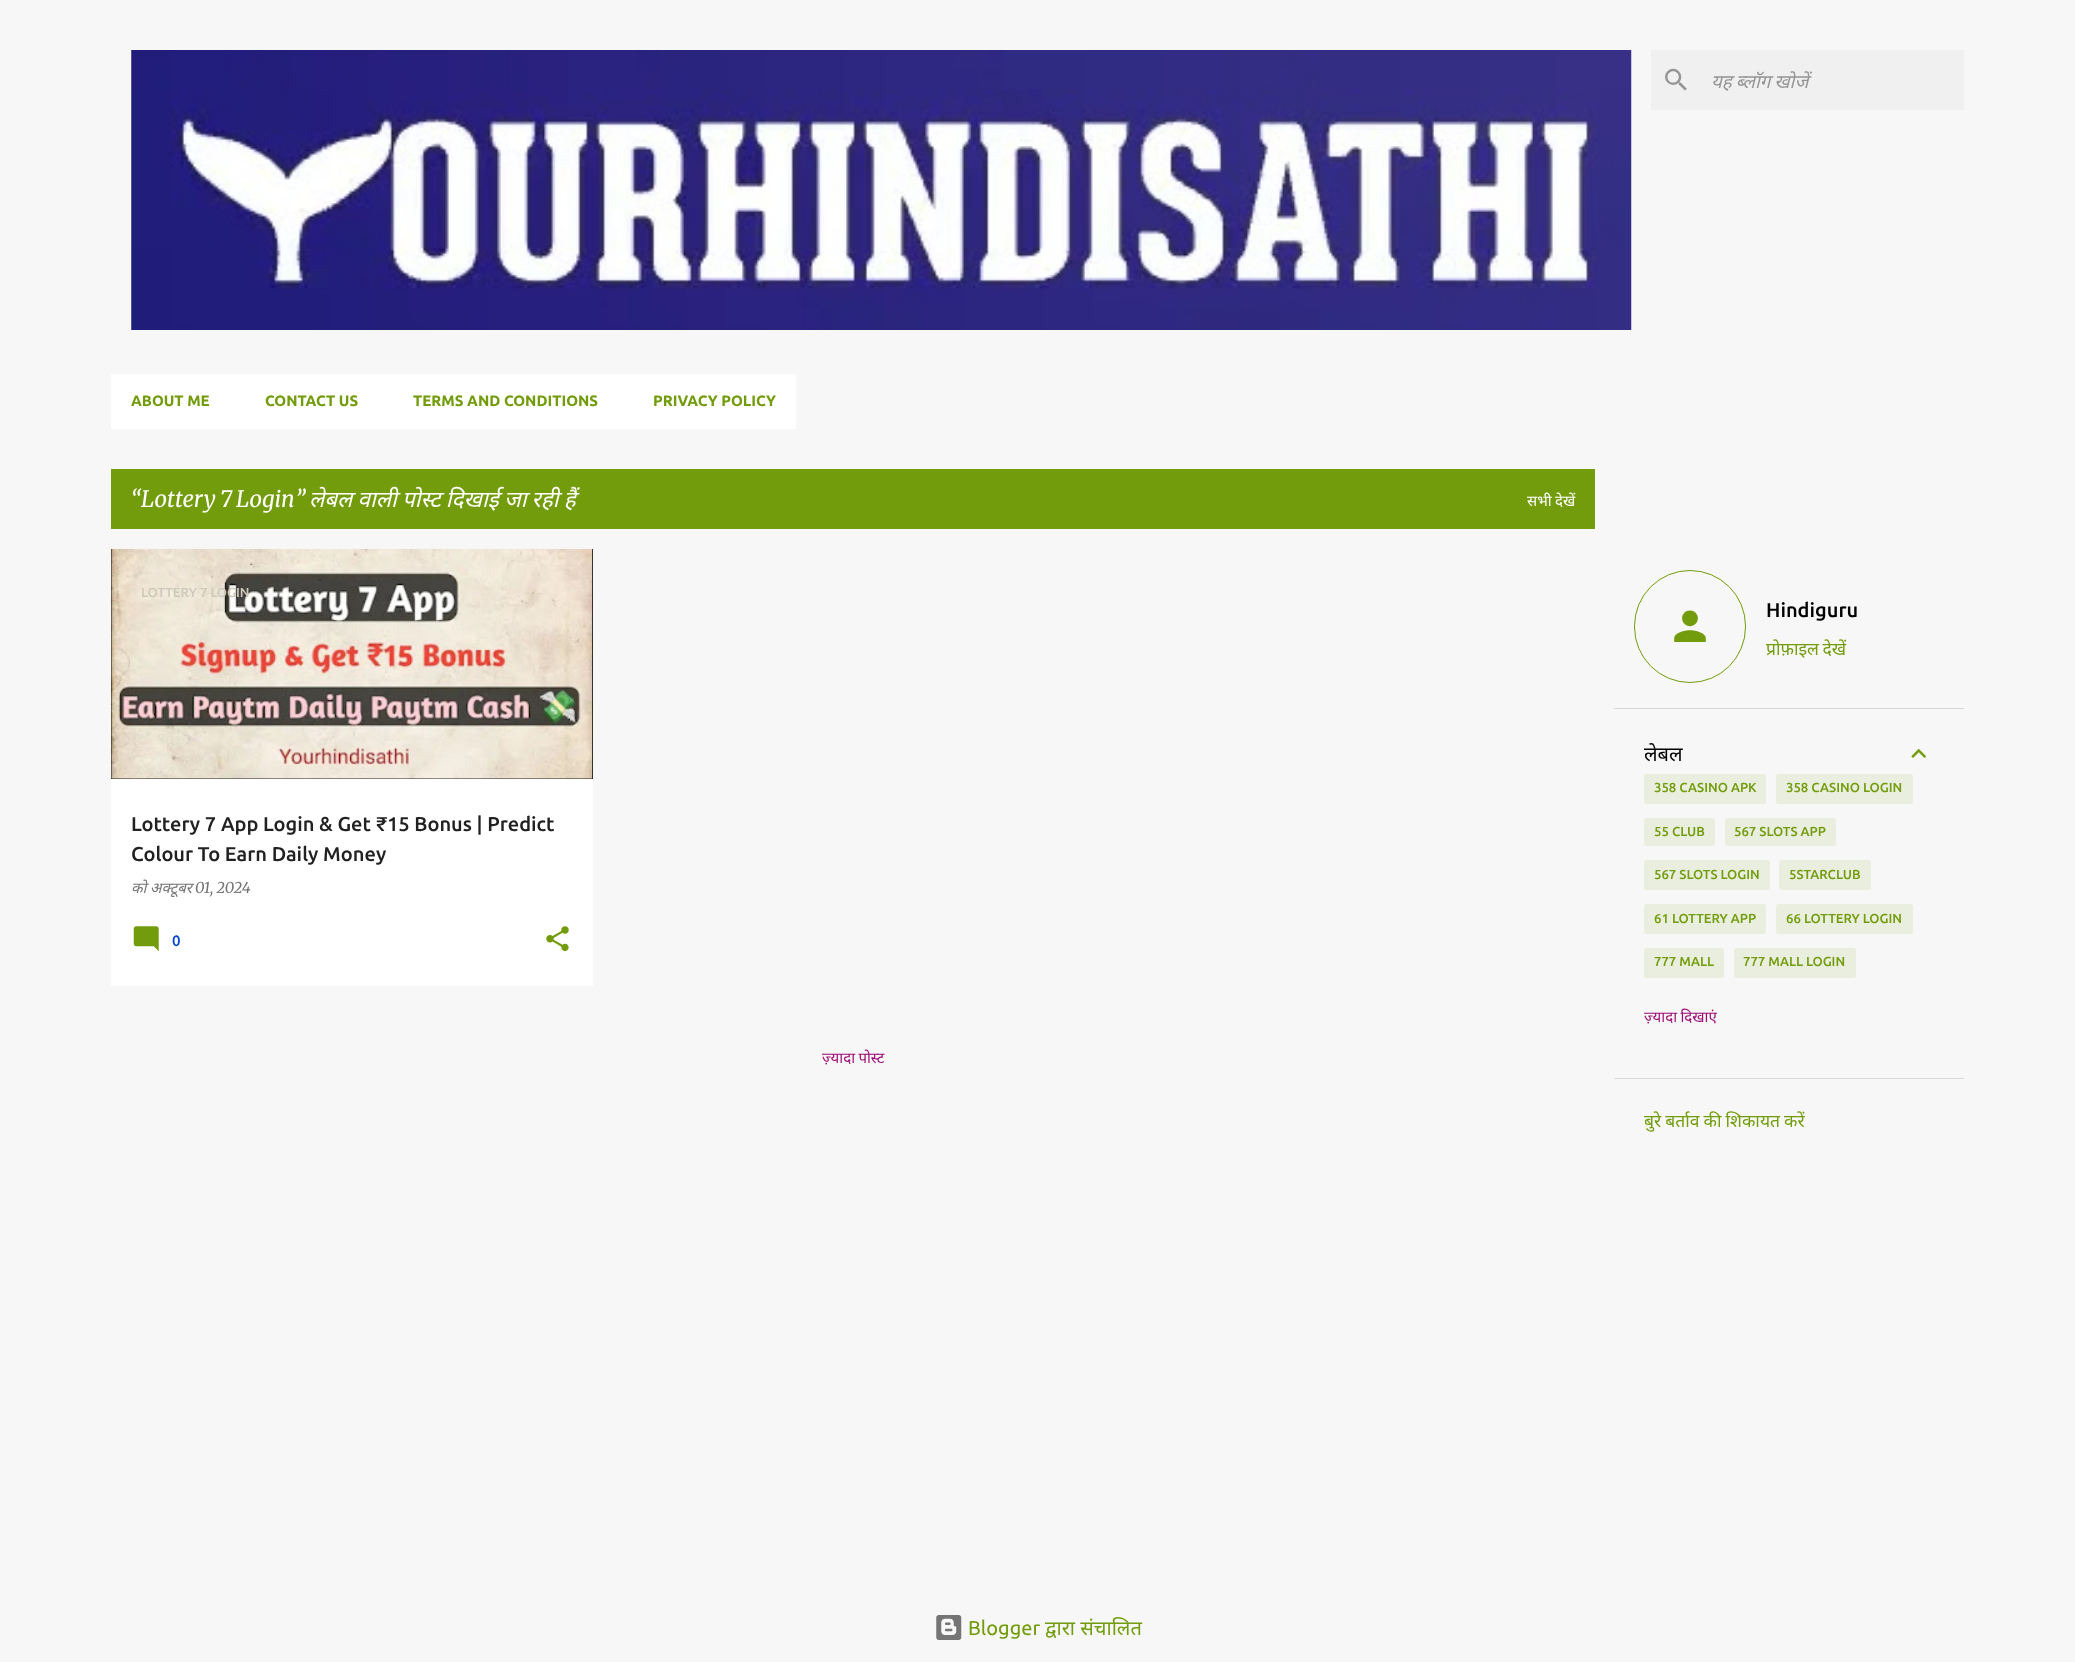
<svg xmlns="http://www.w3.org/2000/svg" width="2075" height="1662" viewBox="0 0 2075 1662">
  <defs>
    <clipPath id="clip1"><path d="M1644 740h260v28H1644z"/></clipPath>
  </defs>
  <rect width="100%" height="100%" fill="#f7f7f7"/>
  <image x="131" y="50" width="1501" height="280" href="img/1.png"/>
  <path d="M1651 50h313v60H1651z" fill="#f0f0f0"/>
  <image x="1665" y="68" width="22" height="23" href="img/2.png"/>
  <path d="M111 374h685v55H111z" fill="#fff"/>
  <path d="M111 469h1484v60H111z" fill="#729c0b"/>
  <path d="M111 779h482v207H111z" fill="#fff"/>
  <path d="M111 549h482v230H111z" fill="#000"/>
  <image x="111" y="548" width="482" height="231" href="img/3.png"/>
  <image x="133" y="926" width="26" height="25" href="img/4.png"/>
  <image x="546" y="926" width="23" height="26" href="img/5.png"/>
  <rect x="1634.5" y="570.5" width="111" height="112" rx="55.5" fill="none" stroke="#729c0b"/>
  <image x="1674" y="610" width="32" height="32" href="img/6.png"/>
  <path d="M1614 708h350v1H1614z" fill="#d9d9d9"/>
  <image x="1911" y="748" width="16" height="10" href="img/7.png"/>
  <rect x="1644" y="774" width="122" height="30" rx="2.5" fill="#eaeedf"/>
  <rect x="1776" y="774" width="137" height="30" rx="2.5" fill="#eaeedf"/>
  <rect x="1644" y="818" width="71" height="28" rx="2.5" fill="#eaeedf"/>
  <rect x="1725" y="818" width="111" height="28" rx="2.5" fill="#eaeedf"/>
  <rect x="1644" y="860" width="126" height="30" rx="2.5" fill="#eaeedf"/>
  <rect x="1779" y="860" width="92" height="30" rx="2.5" fill="#eaeedf"/>
  <rect x="1644" y="904" width="122" height="30" rx="2.5" fill="#eaeedf"/>
  <rect x="1776" y="904" width="137" height="30" rx="2.5" fill="#eaeedf"/>
  <rect x="1644" y="948" width="80" height="30" rx="2.5" fill="#eaeedf"/>
  <rect x="1734" y="948" width="122" height="30" rx="2.5" fill="#eaeedf"/>
  <path d="M1614 1078h350v1H1614z" fill="#d9d9d9"/>
  <image x="936" y="1615" width="26" height="25" href="img/8.png"/>
  <text x="1711" y="88" word-spacing="-1" font-family="Noto Sans" font-size="18.75" font-style="italic" fill="#959595">यह ब्लॉग खोजें</text>
  <g font-family="Ubuntu" font-size="15" font-weight="bold" fill="#729c0b">
    <text x="131" y="406">ABOUT ME</text>
    <text x="265" y="406">CONTACT US</text>
    <text x="413" y="406">TERMS AND CONDITIONS</text>
    <text x="653" y="406">PRIVACY POLICY</text>
  </g>
  <g font-family="Merriweather" font-size="22.5" font-style="italic" fill="#fff">
    <text x="131" y="507">“</text>
    <text x="141" y="507" word-spacing="-1">Lottery 7 Login</text>
    <text x="295" y="507">”</text>
  </g>
  <text x="309" y="507" word-spacing="-0.75" font-family="Noto Sans" font-size="22.5" font-style="italic" fill="#fff">लेबल वाली पोस्ट दिखाई जा रही हैं</text>
  <text x="1527" y="506" word-spacing="-0.5" font-family="Noto Sans" font-size="15" fill="#fff">सभी देखें</text>
  <text x="141" y="597" font-family="Ubuntu" font-size="13.1" font-weight="500" fill="#cfc9bc">LOTTERY 7 LOGIN</text>
  <g font-family="Noto Sans" font-size="15" font-style="italic" fill="#757575">
    <text x="131" y="893">को</text>
    <text x="150" y="893">अक्टूबर</text>
  </g>
  <text x="195" y="893" font-family="Merriweather" font-size="15" font-style="italic" fill="#757575">01, 2024</text>
  <g font-family="Ubuntu" font-size="20" font-weight="500" fill="#212121">
    <text x="131" y="831">Lottery 7 App Login &amp; Get ₹15 Bonus | Predict</text>
    <text x="131" y="861">Colour To Earn Daily Money</text>
  </g>
  <text x="172" y="946" font-family="Ubuntu" font-size="15" font-weight="500" fill="#0044d6">0</text>
  <text x="822" y="1063" word-spacing="-0.5" font-family="Noto Sans" font-size="15" fill="#9c0b73">ज़्यादा पोस्ट</text>
  <text x="1766" y="617" font-family="Ubuntu" font-size="20" font-weight="500" fill="#000">Hindiguru</text>
  <text x="1766" y="655" word-spacing="-1" font-family="Noto Sans" font-size="17.5" fill="#729c0b">प्रोफ़ाइल देखें</text>
  <g clip-path="url(#clip1)">
    <text x="1644" y="761" font-family="Noto Sans" font-size="20" fill="#000">लेबल</text>
  </g>
  <g font-family="Ubuntu" font-size="13.1" font-weight="500" fill="#729c0b">
    <text x="1654" y="792">358 CASINO APK</text>
    <text x="1786" y="792">358 CASINO LOGIN</text>
    <text x="1654" y="836">55 CLUB</text>
    <text x="1734" y="836">567 SLOTS APP</text>
    <text x="1654" y="879">567 SLOTS LOGIN</text>
    <text x="1789" y="879">5STARCLUB</text>
    <text x="1654" y="923">61 LOTTERY APP</text>
    <text x="1786" y="923">66 LOTTERY LOGIN</text>
    <text x="1654" y="966">777 MALL</text>
    <text x="1743" y="966">777 MALL LOGIN</text>
  </g>
  <text x="1644" y="1022" word-spacing="-0.5" font-family="Noto Sans" font-size="15" fill="#9c0b73">ज़्यादा दिखाएं</text>
  <text x="1644" y="1127" word-spacing="-0.5" font-family="Noto Sans" font-size="17.5" fill="#729c0b">बुरे बर्ताव की शिकायत करें</text>
  <text x="968" y="1635" font-family="Ubuntu" font-size="20" fill="#729c0b">Blogger</text>
  <text x="1045" y="1635" font-family="Noto Sans" font-size="20" fill="#729c0b">द्वारा संचालित</text>
</svg>
